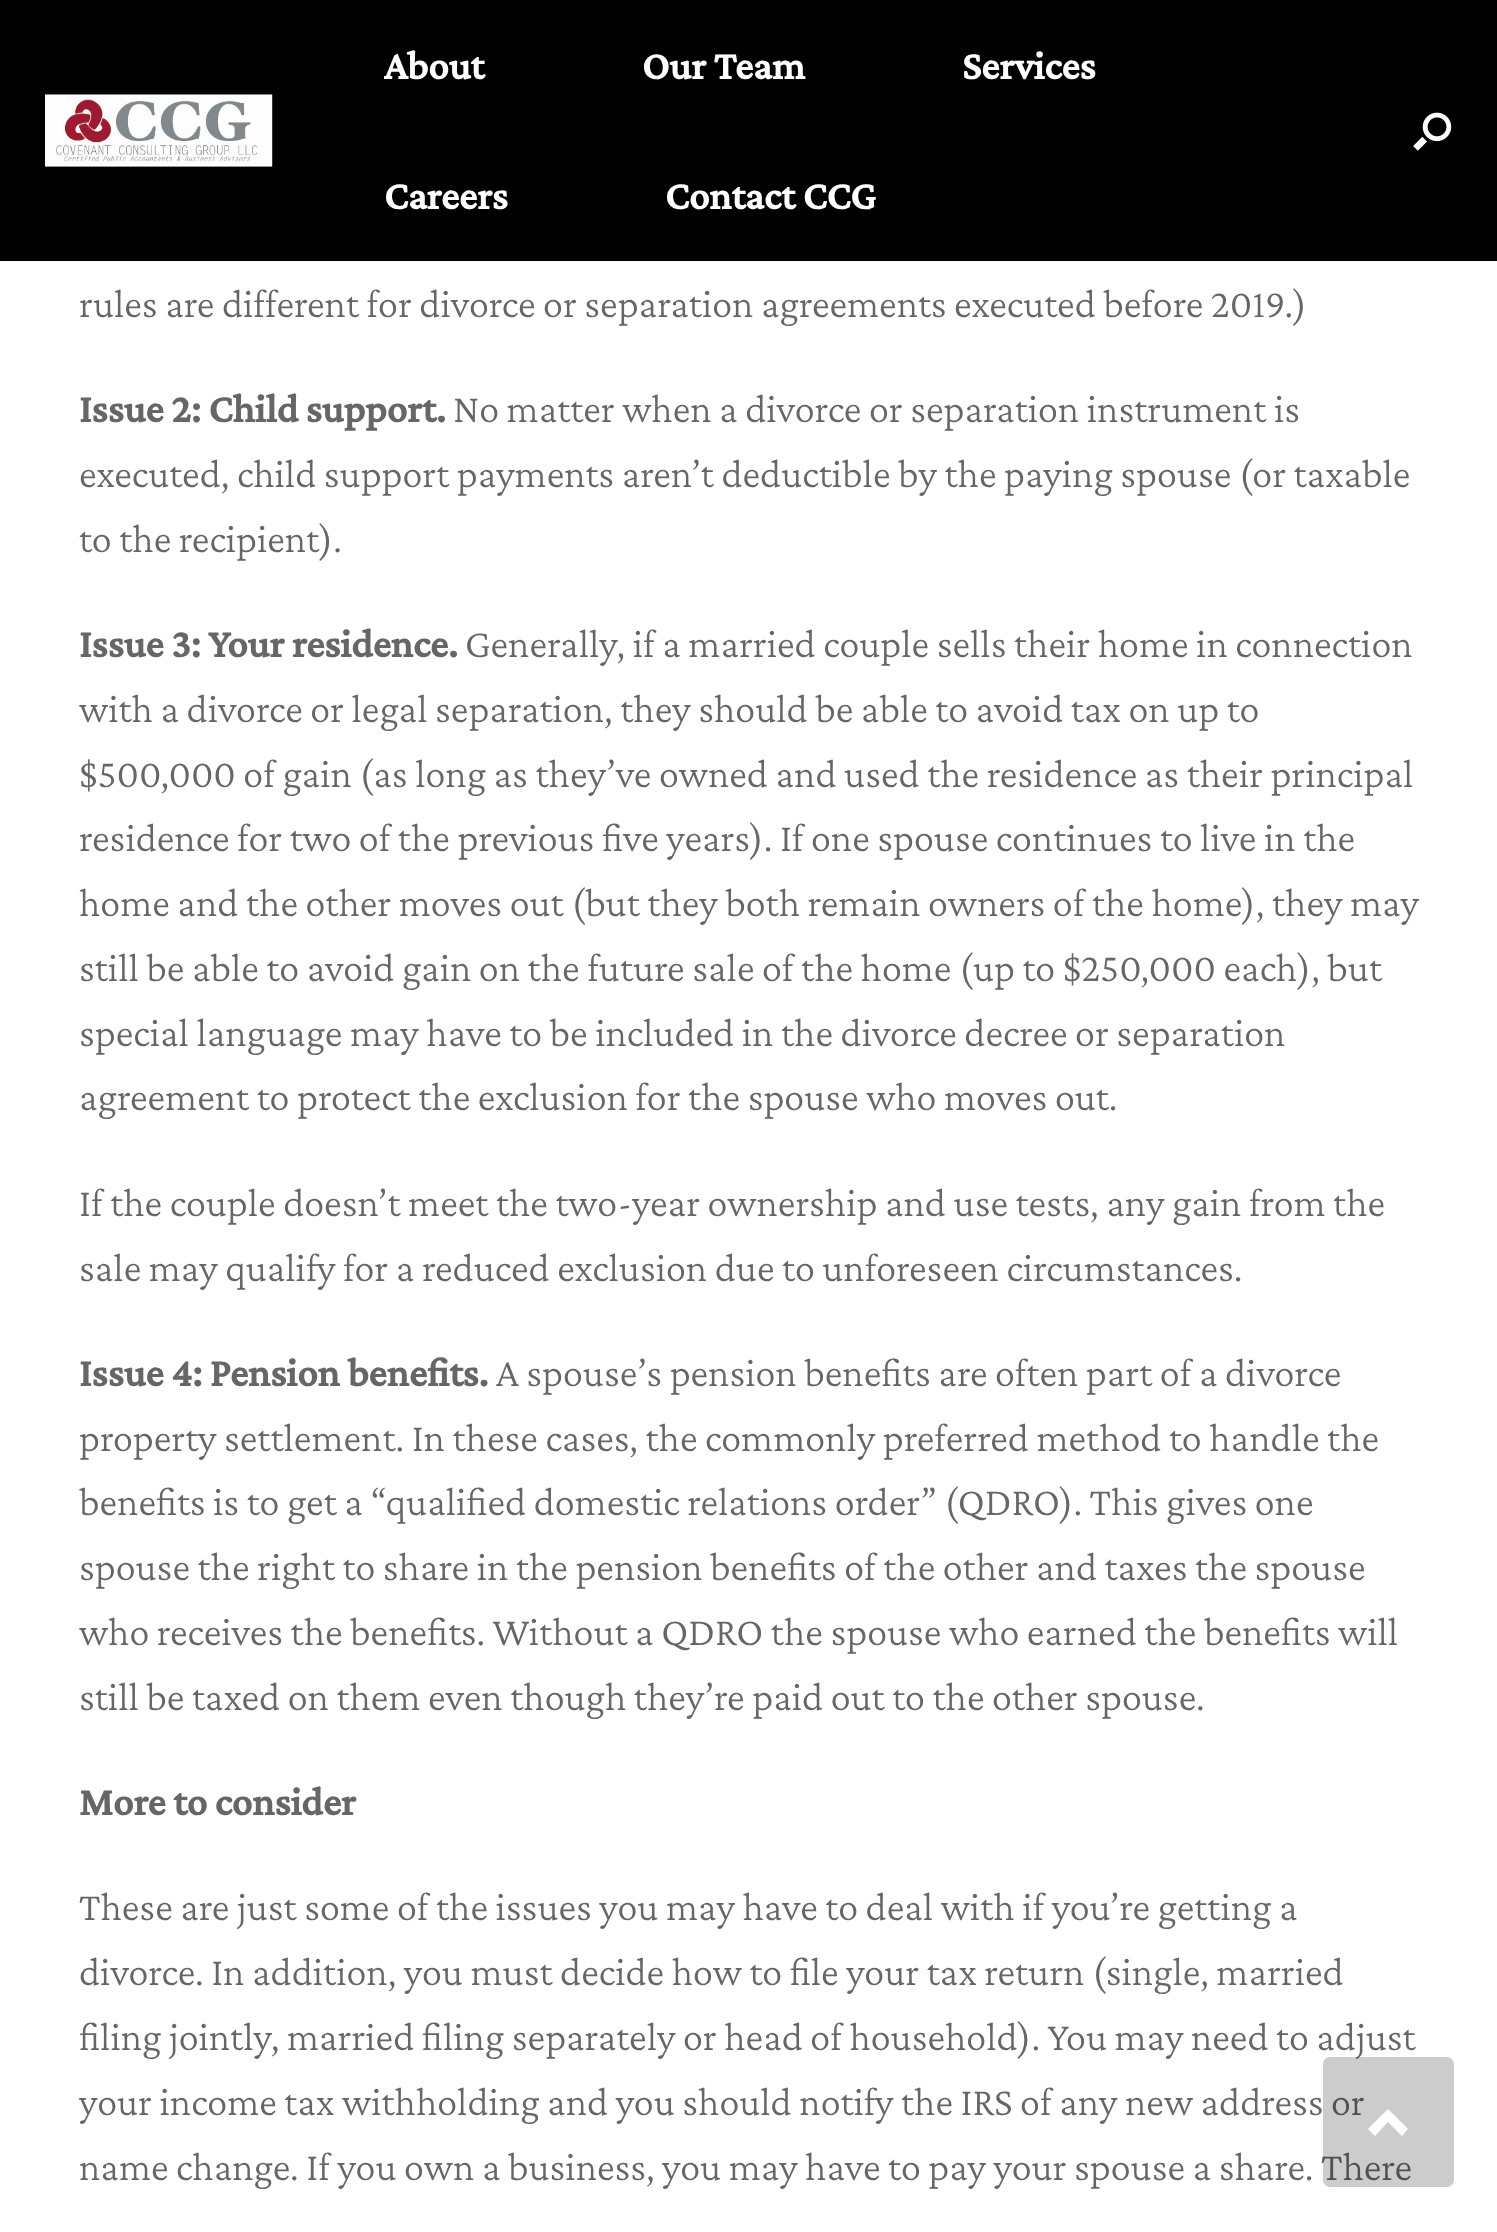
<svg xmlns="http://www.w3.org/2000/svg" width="1497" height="2232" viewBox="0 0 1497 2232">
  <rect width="100%" height="100%" fill="#fff"/>
  <path d="M0 0h1497v261H0z" fill="#000"/>
  <image x="45" y="94" width="228" height="73" href="img/1.png"/>
  <image x="1413" y="112" width="39" height="39" href="img/2.png"/>
  <g font-family="Crimson Pro" font-size="40.5" font-weight="bold" fill="#fff">
    <text x="384" y="79">About</text>
    <text x="642" y="79">Our Team</text>
    <text x="962" y="79">Services</text>
    <text x="384" y="209">Careers</text>
    <text x="665" y="209">Contact CCG</text>
  </g>
  <text x="79" y="317" font-family="Crimson Pro" font-size="40.5" font-weight="300" fill="#666">rules are different for divorce or separation agreements executed before 2019.)</text>
  <text x="79" y="422" font-family="Crimson Pro" font-size="40.5" font-weight="bold" fill="#666">Issue 2: Child support.</text>
  <g font-family="Crimson Pro" font-size="40.5" font-weight="300" fill="#666">
    <text x="453" y="422">No matter when a divorce or separation instrument is</text>
    <text x="79" y="487">executed, child support payments aren’t deductible by the paying spouse (or taxable</text>
    <text x="79" y="552">to the recipient).</text>
  </g>
  <text x="79" y="657" font-family="Crimson Pro" font-size="40.5" font-weight="bold" fill="#666">Issue 3: Your residence.</text>
  <g font-family="Crimson Pro" font-size="40.5" font-weight="300" fill="#666">
    <text x="465" y="657">Generally, if a married couple sells their home in connection</text>
    <text x="79" y="722">with a divorce or legal separation, they should be able to avoid tax on up to</text>
    <text x="79" y="787">$500,000 of gain (as long as they’ve owned and used the residence as their principal</text>
    <text x="79" y="851">residence for two of the previous five years). If one spouse continues to live in the</text>
    <text x="79" y="916">home and the other moves out (but they both remain owners of the home), they may</text>
    <text x="79" y="981">still be able to avoid gain on the future sale of the home (up to $250,000 each), but</text>
    <text x="79" y="1046">special language may have to be included in the divorce decree or separation</text>
    <text x="79" y="1110">agreement to protect the exclusion for the spouse who moves out.</text>
    <text x="79" y="1216">If the couple doesn’t meet the two-year ownership and use tests, any gain from the</text>
    <text x="79" y="1281">sale may qualify for a reduced exclusion due to unforeseen circumstances.</text>
  </g>
  <text x="79" y="1386" font-family="Crimson Pro" font-size="40.5" font-weight="bold" fill="#666">Issue 4: Pension benefits.</text>
  <g font-family="Crimson Pro" font-size="40.5" font-weight="300" fill="#666">
    <text x="496" y="1386">A spouse’s pension benefits are often part of a divorce</text>
    <text x="79" y="1451">property settlement. In these cases, the commonly preferred method to handle the</text>
    <text x="79" y="1515">benefits is to get a “qualified domestic relations order” (QDRO). This gives one</text>
    <text x="79" y="1580">spouse the right to share in the pension benefits of the other and taxes the spouse</text>
    <text x="79" y="1645">who receives the benefits. Without a QDRO the spouse who earned the benefits will</text>
    <text x="79" y="1710">still be taxed on them even though they’re paid out to the other spouse.</text>
  </g>
  <text x="79" y="1815" font-family="Crimson Pro" font-size="40.5" font-weight="bold" fill="#666">More to consider</text>
  <g font-family="Crimson Pro" font-size="40.5" font-weight="300" fill="#666">
    <text x="79" y="1920">These are just some of the issues you may have to deal with if you’re getting a</text>
    <text x="79" y="1985">divorce. In addition, you must decide how to file your tax return (single, married</text>
    <text x="79" y="2050">filing jointly, married filing separately or head of household). You may need to adjust</text>
    <text x="79" y="2115">your income tax withholding and you should notify the IRS of any new address or</text>
    <text x="79" y="2180">name change. If you own a business, you may have to pay your spouse a share. There</text>
  </g>
  <rect x="1323" y="2057" width="131" height="130" rx="7" fill="#00000033"/>
  <path d="M1408 2129L1388 2109L1368 2129L1375 2136L1388 2122L1402 2136Z" fill="#fff"/>
</svg>
